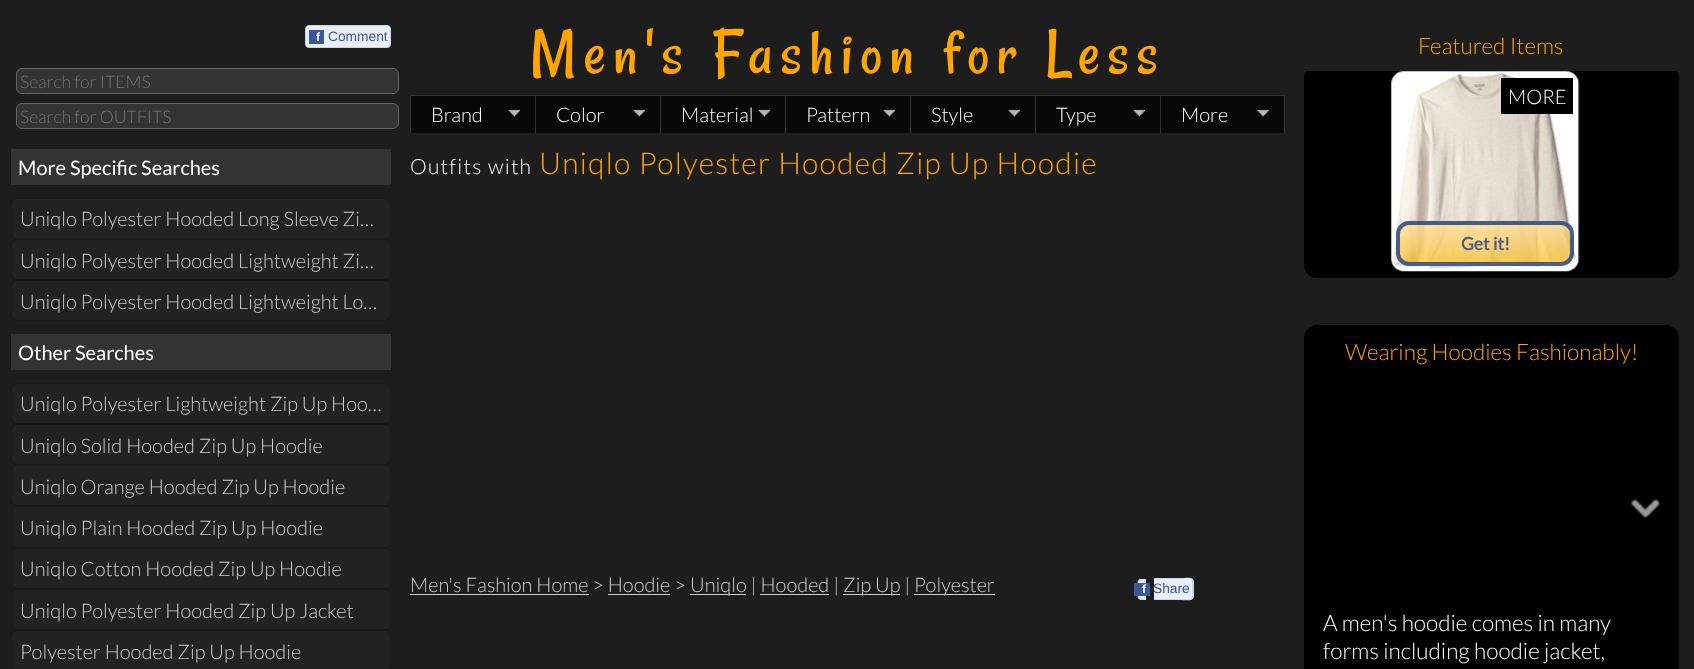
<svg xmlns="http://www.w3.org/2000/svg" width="1694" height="669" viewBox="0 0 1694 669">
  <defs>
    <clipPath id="clip1"><path d="M1304 71h375v248H1304z"/></clipPath>
  </defs>
  <rect width="100%" height="100%" fill="#1d1d1d"/>
  <rect x="305.5" y="25.5" width="85" height="22" rx="3.5" fill="#eceef5" stroke="#cad4e7"/>
  <path d="M309 30h15v14H309z" fill="#3b5998"/>
  <rect x="16.5" y="68.5" width="382" height="25" rx="5.5" fill="#333" stroke="#666"/>
  <rect x="16.5" y="103.5" width="382" height="25" rx="5.5" fill="#333" stroke="#666"/>
  <path d="M11 149h380v36H11z" fill="#333"/>
  <rect x="11.5" y="198.5" width="379" height="40" rx="5.5" fill="#222" stroke="#1a1a1a"/>
  <rect x="11.5" y="239.5" width="379" height="40" rx="5.5" fill="#222" stroke="#1a1a1a"/>
  <rect x="11.5" y="280.5" width="379" height="40" rx="5.5" fill="#222" stroke="#1a1a1a"/>
  <path d="M11 334h380v36H11z" fill="#333"/>
  <rect x="11.5" y="383.5" width="379" height="40" rx="5.5" fill="#222" stroke="#1a1a1a"/>
  <rect x="11.5" y="424.5" width="379" height="40" rx="5.5" fill="#222" stroke="#1a1a1a"/>
  <rect x="11.5" y="465.5" width="379" height="40" rx="5.5" fill="#222" stroke="#1a1a1a"/>
  <rect x="11.5" y="506.5" width="379" height="41" rx="5.5" fill="#222" stroke="#1a1a1a"/>
  <rect x="11.5" y="548.5" width="379" height="40" rx="5.5" fill="#222" stroke="#1a1a1a"/>
  <rect x="11.5" y="589.5" width="379" height="40" rx="5.5" fill="#222" stroke="#1a1a1a"/>
  <rect x="11.5" y="630.5" width="379" height="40" rx="5.5" fill="#222" stroke="#1a1a1a"/>
  <path d="M411 96h124v37H411z" fill="#080808"/>
  <path d="M410 95h375v1H410z" fill="#333"/>
  <path d="M410 95h1v38H410z" fill="#333"/>
  <image x="508" y="109" width="12" height="8" href="img/1.png"/>
  <image x="508" y="109" width="12" height="8" href="img/2.png"/>
  <path d="M536 96h124v37H536z" fill="#080808"/>
  <path d="M535 95h1v38H535z" fill="#333"/>
  <image x="633" y="109" width="12" height="8" href="img/1.png"/>
  <image x="633" y="109" width="12" height="8" href="img/2.png"/>
  <path d="M661 96h124v37H661z" fill="#080808"/>
  <path d="M660 95h1v38H660z" fill="#333"/>
  <image x="758" y="109" width="12" height="8" href="img/1.png"/>
  <image x="758" y="109" width="12" height="8" href="img/2.png"/>
  <path d="M786 96h124v37H786z" fill="#080808"/>
  <path d="M785 95h500v1H785z" fill="#333"/>
  <path d="M785 95h1v38H785z" fill="#333"/>
  <image x="883" y="109" width="12" height="8" href="img/1.png"/>
  <image x="883" y="109" width="12" height="8" href="img/2.png"/>
  <path d="M911 96h124v37H911z" fill="#080808"/>
  <path d="M910 95h1v38H910z" fill="#333"/>
  <image x="1008" y="109" width="12" height="8" href="img/3.png"/>
  <image x="1008" y="109" width="12" height="8" href="img/4.png"/>
  <path d="M1036 96h124v37H1036z" fill="#080808"/>
  <path d="M1035 95h1v38H1035z" fill="#333"/>
  <image x="1133" y="109" width="12" height="8" href="img/5.png"/>
  <image x="1133" y="109" width="12" height="8" href="img/6.png"/>
  <path d="M1161 96h123v37H1161z" fill="#080808"/>
  <path d="M1284 95h1v38H1284z" fill="#333"/>
  <path d="M1160 95h1v38H1160z" fill="#333"/>
  <image x="1257" y="109" width="12" height="8" href="img/7.png"/>
  <image x="1257" y="109" width="12" height="8" href="img/8.png"/>
  <path d="M410 594h179v1H410z" fill="#ccc"/>
  <path d="M608 594h62v1H608z" fill="#ccc"/>
  <path d="M690 594h56v1H690z" fill="#ccc"/>
  <path d="M760 594h69v1H760z" fill="#ccc"/>
  <path d="M843 594h57v1H843z" fill="#ccc"/>
  <path d="M914 594h81v1H914z" fill="#ccc"/>
  <path d="M1142 579H1146V600H1142C1140 600 1138 598 1138 596V583C1138 581 1140 579 1142 579Z" fill="#eceef5"/>
  <path d="M1141 579H1146V600C1136.5 600 1137.5 599.5 1137.5 589.5C1137.5 586.5 1136 579 1141 579ZM1141 580H1146V599C1139 599 1139 599.5 1139 591.5V585C1139 583 1138.5 580 1141 580Z" fill="#cad4e7" fill-rule="evenodd"/>
  <path d="M1134 583h16v13H1134z" fill="#3b5998"/>
  <path d="M1154 578H1190C1192 578 1194 580 1194 582V596C1194 598 1192 600 1190 600H1154Z" fill="#eceef5"/>
  <path d="M1154 578H1178C1193 578 1194 575 1194 589C1194 603 1193 600 1178 600H1154ZM1154 579H1178C1193 579 1192 575 1192 589C1192 602 1193 599 1178 599H1154Z" fill="#cad4e7" fill-rule="evenodd"/>
  <g clip-path="url(#clip1)">
    <rect x="1304" y="65" width="375" height="213" rx="13" fill="#000"/>
  </g>
  <image x="1391" y="71" width="189" height="201" href="img/9.png"/>
  <path d="M1501 78h72v36H1501z" fill="#000"/>
  <rect x="1398" y="223" width="174" height="41" rx="11" fill="none" stroke="#1c3e8ccc" stroke-width="4"/>
  <rect x="1304" y="325" width="375" height="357" rx="13" fill="#000"/>
  <image x="1630" y="499" width="30" height="19" href="img/10.png"/>
  <text x="316" y="41" font-family="Liberation Sans" font-size="12" font-weight="bold" fill="#fff">f</text>
  <text x="328" y="41" font-family="Liberation Sans" font-size="13.75" fill="#3b5998">Comment</text>
  <g font-family="Lato" font-size="17.5" font-weight="300" fill="#757575">
    <text x="20" y="88">Search for ITEMS</text>
    <text x="20" y="123">Search for OUTFITS</text>
  </g>
  <text x="18" y="175" font-family="Lato" font-size="20" fill="#fff">More Specific Searches</text>
  <g font-family="Lato" font-size="20" font-weight="300" fill="#ccc">
    <text x="20" y="226">Uniqlo Polyester Hooded Long Sleeve Zi…</text>
    <text x="20" y="268">Uniqlo Polyester Hooded Lightweight Zi…</text>
    <text x="20" y="309">Uniqlo Polyester Hooded Lightweight Lo…</text>
  </g>
  <text x="18" y="360" font-family="Lato" font-size="20" fill="#fff">Other Searches</text>
  <g font-family="Lato" font-size="20" font-weight="300" fill="#ccc">
    <text x="20" y="411">Uniqlo Polyester Lightweight Zip Up Hoo…</text>
    <text x="20" y="453">Uniqlo Solid Hooded Zip Up Hoodie</text>
    <text x="20" y="494">Uniqlo Orange Hooded Zip Up Hoodie</text>
    <text x="20" y="535">Uniqlo Plain Hooded Zip Up Hoodie</text>
    <text x="20" y="576">Uniqlo Cotton Hooded Zip Up Hoodie</text>
    <text x="20" y="618">Uniqlo Polyester Hooded Zip Up Jacket</text>
    <text x="20" y="659">Polyester Hooded Zip Up Hoodie</text>
  </g>
  <text x="530" y="73" font-family="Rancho" font-size="67.5" letter-spacing="7.5" fill="#ffa500">Men's Fashion for Less</text>
  <g font-family="Lato" font-size="20" font-weight="300" fill="#fff">
    <text x="431" y="122">Brand</text>
    <text x="556" y="122">Color</text>
    <text x="681" y="122">Material</text>
    <text x="806" y="122">Pattern</text>
    <text x="931" y="122">Style</text>
    <text x="1056" y="122">Type</text>
    <text x="1181" y="122">More</text>
  </g>
  <text x="410" y="174" font-family="Lato" font-size="21" font-weight="300" letter-spacing="1.25" fill="#fff">Outfits with</text>
  <text x="539" y="174" font-family="Lato" font-size="30" font-weight="300" letter-spacing="1.25" fill="#ffa500">Uniqlo Polyester Hooded Zip Up Hoodie</text>
  <g font-family="Lato" font-size="20" font-weight="300" fill="#ccc">
    <text x="410" y="592">Men's Fashion Home &gt; Hoodie &gt;</text>
    <text x="690" y="592">Uniqlo | Hooded |</text>
    <text x="843" y="592">Zip Up |</text>
    <text x="914" y="592">Polyester</text>
  </g>
  <text x="1142" y="593" font-family="Liberation Sans" font-size="12" font-weight="bold" fill="#fff">f</text>
  <text x="1153" y="593" font-family="Liberation Sans" font-size="13.75" fill="#3b5998">Share</text>
  <text x="1418" y="54" font-family="Lato" font-size="22.5" font-weight="300" fill="#ffa500">Featured Items</text>
  <text x="1508" y="104" font-family="Lato" font-size="20" font-weight="300" fill="#fff">MORE</text>
  <text x="1461" y="250" font-family="Lato" font-size="17.5" font-weight="bold" fill="#485c88">Get it!</text>
  <text x="1345" y="360" font-family="Lato" font-size="22.5" font-weight="300" fill="#ffa500">Wearing Hoodies Fashionably!</text>
  <g font-family="Lato" font-size="22.5" font-weight="300" fill="#fff">
    <text x="1323" y="631">A men's hoodie comes in many</text>
    <text x="1323" y="659">forms including hoodie jacket,</text>
  </g>
</svg>
